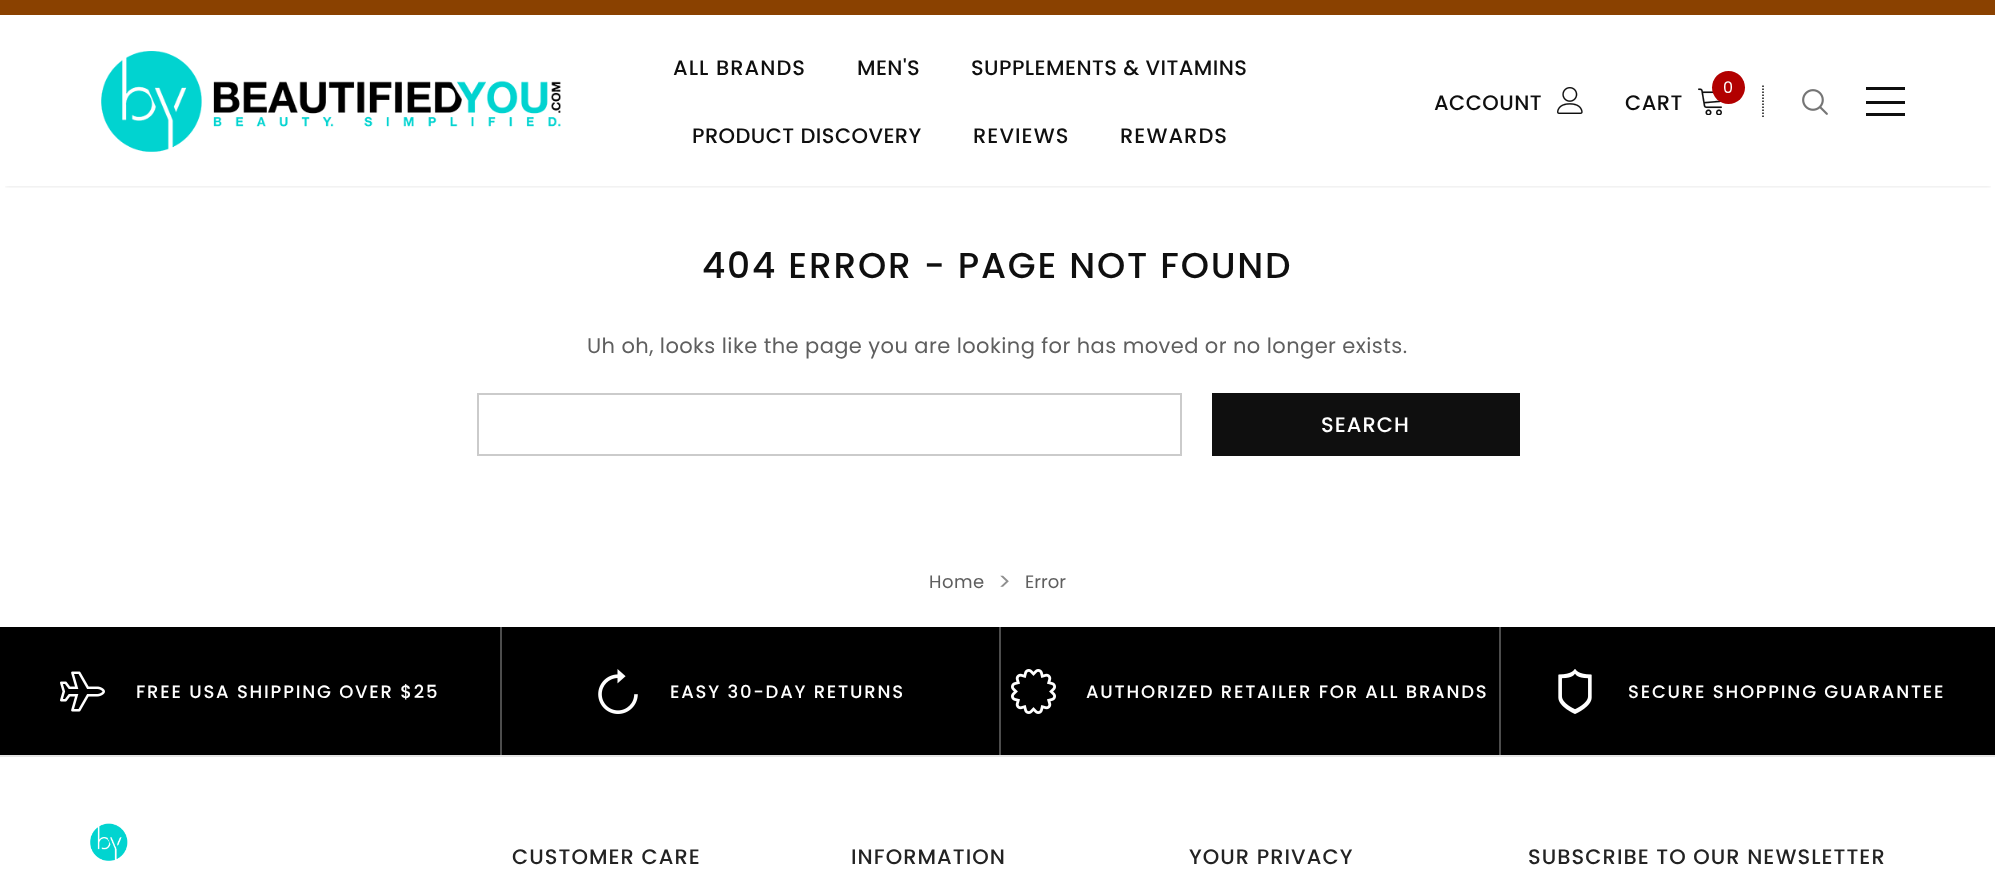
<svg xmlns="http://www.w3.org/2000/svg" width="1995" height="887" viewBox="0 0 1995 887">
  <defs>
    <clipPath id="clip1"><path d="M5 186h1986v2H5z"/></clipPath>
  </defs>
  <rect width="100%" height="100%" fill="#fff"/>
  <g clip-path="url(#clip1)">
    <path d="M5 -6h1986v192H5z" fill="#0000001f" filter="blur(2px)"/>
  </g>
  <path d="M0 0h1995v15H0z" fill="#8a4100"/>
  <image x="101" y="51" width="460" height="101" href="img/1.png"/>
  <image x="1557" y="87" width="26" height="27" href="img/2.png"/>
  <image x="1698" y="88" width="24" height="27" href="img/3.png"/>
  <circle cx="1728.5" cy="87.5" r="16.5" fill="#b20000"/>
  <path d="M1763 85.5V118.5" fill="none" stroke="#0f0f0f" stroke-width="1.5" stroke-dasharray="1.5 1.5"/>
  <image x="1802" y="89" width="26" height="26" href="img/4.png"/>
  <path d="M1866 101h39v3H1866z" fill="#0f0f0f"/>
  <path d="M1866 87h39v3H1866z" fill="#0f0f0f"/>
  <path d="M1866 113h39v3H1866z" fill="#0f0f0f"/>
  <path d="M478 394h703v61H478z" fill="none" stroke="#cbcbcb" stroke-width="2"/>
  <path d="M1212 393h308v63H1212z" fill="#0f0f0f"/>
  <path d="M0 627h1995v128H0z" fill="#000"/>
  <image x="60" y="671" width="45" height="41" href="img/5.png"/>
  <path d="M500 627h2v128H500z" fill="#4d4d4d"/>
  <image x="598" y="669" width="40" height="45" href="img/6.png"/>
  <path d="M999 627h2v128H999z" fill="#4d4d4d"/>
  <image x="1011" y="669" width="45" height="45" href="img/7.png"/>
  <path d="M1499 627h2v128H1499z" fill="#4d4d4d"/>
  <image x="1558" y="669" width="34" height="45" href="img/8.png"/>
  <path d="M0 755h1995v2H0z" fill="#e5e5e5"/>
  <image x="90" y="823" width="38" height="38" href="img/9.png"/>
  <text x="673" y="75" font-family="Poppins" font-size="21" font-weight="500" letter-spacing="1.05" fill="#0f0f0f">ALL BRANDS</text>
  <g font-family="Poppins" font-size="21" font-weight="500" letter-spacing="0.42" fill="#0f0f0f">
    <text x="857" y="75">MEN'S</text>
    <text x="971" y="75">SUPPLEMENTS &amp; VITAMINS</text>
    <text x="692" y="143">PRODUCT DISCOVERY</text>
  </g>
  <g font-family="Poppins" font-size="21" font-weight="500" letter-spacing="1.05" fill="#0f0f0f">
    <text x="973" y="143">REVIEWS</text>
    <text x="1120" y="143">REWARDS</text>
  </g>
  <text x="1434" y="110" font-family="Poppins" font-size="21" font-weight="500" letter-spacing="0.42" fill="#0f0f0f">ACCOUNT</text>
  <text x="1723" y="93" font-family="Poppins" font-size="16" letter-spacing="0.42" fill="#fff">0</text>
  <text x="1625" y="110" font-family="Poppins" font-size="21" font-weight="500" letter-spacing="0.42" fill="#0f0f0f">CART</text>
  <text x="702" y="278" font-family="Poppins" font-size="36" font-weight="500" letter-spacing="1.8" fill="#0f0f0f">404 ERROR - PAGE NOT FOUND</text>
  <text x="587" y="353" font-family="Poppins" font-size="21" letter-spacing="0.42" fill="#5f5f5f">Uh oh, looks like the page you are looking for has moved or no longer exists.</text>
  <text x="1321" y="432" font-family="Poppins" font-size="21" font-weight="500" letter-spacing="1.05" fill="#fff">SEARCH</text>
  <text x="929" y="588" font-family="Poppins" font-size="18" letter-spacing="0.5" fill="#5f5f5f">Home</text>
  <text x="998" y="590" font-family="Poppins" font-size="24" fill="#8f8f8f">&gt;</text>
  <text x="1025" y="588" font-family="Poppins" font-size="18" fill="#5f5f5f">Error</text>
  <g font-family="Poppins" font-size="18" font-weight="500" letter-spacing="1.8" fill="#fff">
    <text x="136" y="698">FREE USA SHIPPING OVER $25</text>
    <text x="670" y="698">EASY 30-DAY RETURNS</text>
    <text x="1086" y="698">AUTHORIZED RETAILER FOR ALL BRANDS</text>
    <text x="1628" y="698">SECURE SHOPPING GUARANTEE</text>
  </g>
  <g font-family="Poppins" font-size="21" font-weight="500" letter-spacing="1.05" fill="#232323">
    <text x="512" y="864">CUSTOMER CARE</text>
    <text x="851" y="864">INFORMATION</text>
    <text x="1189" y="864">YOUR PRIVACY</text>
    <text x="1528" y="864">SUBSCRIBE TO OUR NEWSLETTER</text>
  </g>
</svg>
